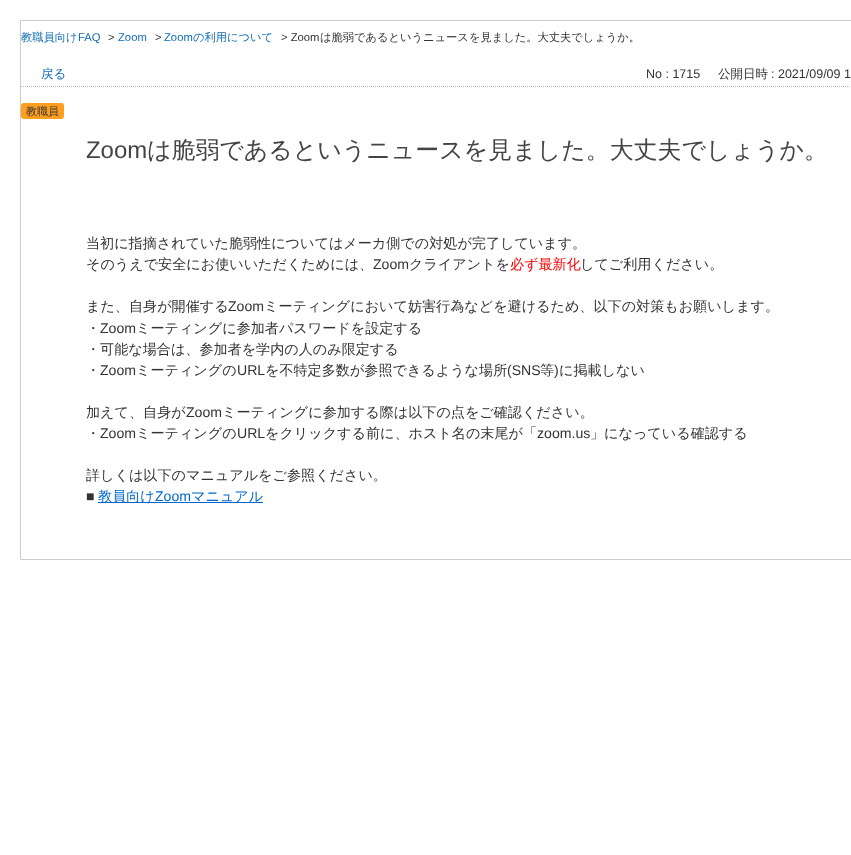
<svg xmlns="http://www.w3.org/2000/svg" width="851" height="855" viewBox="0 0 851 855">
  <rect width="100%" height="100%" fill="#fff"/>
  <path d="M20.5 20.5h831v539H20.5z" fill="none" stroke="#ccc"/>
  <path d="M21 86.5H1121" fill="none" stroke="#bbb" stroke-dasharray="1 1"/>
  <rect x="21" y="103" width="43" height="16" rx="3" fill="#ff9e1f"/>
  <path d="M98 502h165v1H98z" fill="#06c"/>
  <text x="21" y="41" font-family="WenQuanYi Zen Hei" font-size="11.25" font-weight="500" fill="#116bb7">教職員向け</text>
  <text x="78" y="41" font-family="Liberation Sans" font-size="11.25" fill="#116bb7">FAQ</text>
  <text x="108" y="41" font-family="Liberation Sans" font-size="11.25" fill="#333">&gt;</text>
  <text x="118" y="41" font-family="Liberation Sans" font-size="11.25" fill="#116bb7">Zoom</text>
  <text x="155" y="41" font-family="Liberation Sans" font-size="11.25" fill="#333">&gt;</text>
  <text x="164" y="41" font-family="Liberation Sans" font-size="11.25" fill="#116bb7">Zoom</text>
  <text x="193" y="41" font-family="WenQuanYi Zen Hei" font-size="11.25" font-weight="500" fill="#116bb7">の利用について</text>
  <text x="281" y="41" font-family="Liberation Sans" font-size="11.25" fill="#333">&gt; Zoom</text>
  <text x="320" y="41" font-family="WenQuanYi Zen Hei" font-size="11.25" font-weight="500" fill="#333">は脆弱であるというニュースを見ました。大丈夫でしょうか。</text>
  <text x="41" y="78" font-family="WenQuanYi Zen Hei" font-size="12.5" font-weight="500" fill="#116bb7">戻る</text>
  <text x="646" y="78" font-family="Liberation Sans" font-size="12.5" fill="#333">No : 1715</text>
  <text x="718" y="78" font-family="WenQuanYi Zen Hei" font-size="12.5" font-weight="500" fill="#333">公開日時</text>
  <text x="771" y="78" font-family="Liberation Sans" font-size="12.5" fill="#333">: 2021/09/09 1</text>
  <text x="26" y="115" font-family="WenQuanYi Zen Hei" font-size="11" font-weight="500" fill="#333">教職員</text>
  <text x="86" y="158" font-family="Liberation Sans" font-size="23.95" fill="#444">Zoom</text>
  <text x="147" y="158" font-family="WenQuanYi Zen Hei" font-size="23.95" font-weight="500" fill="#444">は脆弱であるというニュースを見ました。大丈夫でしょうか。</text>
  <g font-family="WenQuanYi Zen Hei" font-size="14.1" font-weight="500" fill="#333">
    <text x="86" y="248">当初に指摘されていた脆弱性についてはメーカ側での対処が完了しています。</text>
    <text x="86" y="269">そのうえで安全にお使いいただくためには、</text>
  </g>
  <text x="373" y="269" font-family="Liberation Sans" font-size="14.1" fill="#333">Zoom</text>
  <text x="409" y="269" font-family="WenQuanYi Zen Hei" font-size="14.1" font-weight="500" fill="#333">クライアントを</text>
  <text x="510" y="269" font-family="WenQuanYi Zen Hei" font-size="14.1" font-weight="500" fill="#f00">必ず最新化</text>
  <g font-family="WenQuanYi Zen Hei" font-size="14.1" font-weight="500" fill="#333">
    <text x="580" y="269">してご利用ください。</text>
    <text x="86" y="311">また、自身が開催する</text>
  </g>
  <text x="228" y="311" font-family="Liberation Sans" font-size="14.1" fill="#333">Zoom</text>
  <g font-family="WenQuanYi Zen Hei" font-size="14.1" font-weight="500" fill="#333">
    <text x="264" y="311">ミーティングにおいて妨害行為などを避けるため、以下の対策もお願いします。</text>
    <text x="86" y="333">・</text>
  </g>
  <text x="100" y="333" font-family="Liberation Sans" font-size="14.1" fill="#333">Zoom</text>
  <g font-family="WenQuanYi Zen Hei" font-size="14.1" font-weight="500" fill="#333">
    <text x="136" y="333">ミーティングに参加者パスワードを設定する</text>
    <text x="86" y="354">・可能な場合は、参加者を学内の人のみ限定する</text>
    <text x="86" y="375">・</text>
  </g>
  <text x="100" y="375" font-family="Liberation Sans" font-size="14.1" fill="#333">Zoom</text>
  <text x="136" y="375" font-family="WenQuanYi Zen Hei" font-size="14.1" font-weight="500" fill="#333">ミーティングの</text>
  <text x="237" y="375" font-family="Liberation Sans" font-size="14.1" fill="#333">URL</text>
  <text x="265" y="375" font-family="WenQuanYi Zen Hei" font-size="14.1" font-weight="500" fill="#333">を不特定多数が参照できるような場所</text>
  <text x="507" y="375" font-family="Liberation Sans" font-size="14.1" fill="#333">(SNS</text>
  <text x="540" y="375" font-family="WenQuanYi Zen Hei" font-size="14.1" font-weight="500" fill="#333">等</text>
  <text x="554" y="375" font-family="Liberation Sans" font-size="14.1" fill="#333">)</text>
  <g font-family="WenQuanYi Zen Hei" font-size="14.1" font-weight="500" fill="#333">
    <text x="559" y="375">に掲載しない</text>
    <text x="86" y="417">加えて、自身が</text>
  </g>
  <text x="186" y="417" font-family="Liberation Sans" font-size="14.1" fill="#333">Zoom</text>
  <g font-family="WenQuanYi Zen Hei" font-size="14.1" font-weight="500" fill="#333">
    <text x="222" y="417">ミーティングに参加する際は以下の点をご確認ください。</text>
    <text x="86" y="438">・</text>
  </g>
  <text x="100" y="438" font-family="Liberation Sans" font-size="14.1" fill="#333">Zoom</text>
  <text x="136" y="438" font-family="WenQuanYi Zen Hei" font-size="14.1" font-weight="500" fill="#333">ミーティングの</text>
  <text x="237" y="438" font-family="Liberation Sans" font-size="14.1" fill="#333">URL</text>
  <text x="265" y="438" font-family="WenQuanYi Zen Hei" font-size="14.1" font-weight="500" fill="#333">をクリックする前に、ホスト名の末尾が「</text>
  <text x="537" y="438" font-family="Liberation Sans" font-size="14.1" fill="#333">zoom.us</text>
  <g font-family="WenQuanYi Zen Hei" font-size="14.1" font-weight="500" fill="#333">
    <text x="590" y="438">」になっている確認する</text>
    <text x="86" y="480">詳しくは以下のマニュアルをご参照ください。</text>
  </g>
  <text x="86" y="501" font-family="Liberation Sans" font-size="14.1" fill="#333">■</text>
  <text x="98" y="501" font-family="WenQuanYi Zen Hei" font-size="14.1" font-weight="500" fill="#06c">教員向け</text>
  <text x="155" y="501" font-family="Liberation Sans" font-size="14.1" fill="#06c">Zoom</text>
  <text x="191" y="501" font-family="WenQuanYi Zen Hei" font-size="14.1" font-weight="500" fill="#06c">マニュアル</text>
</svg>
